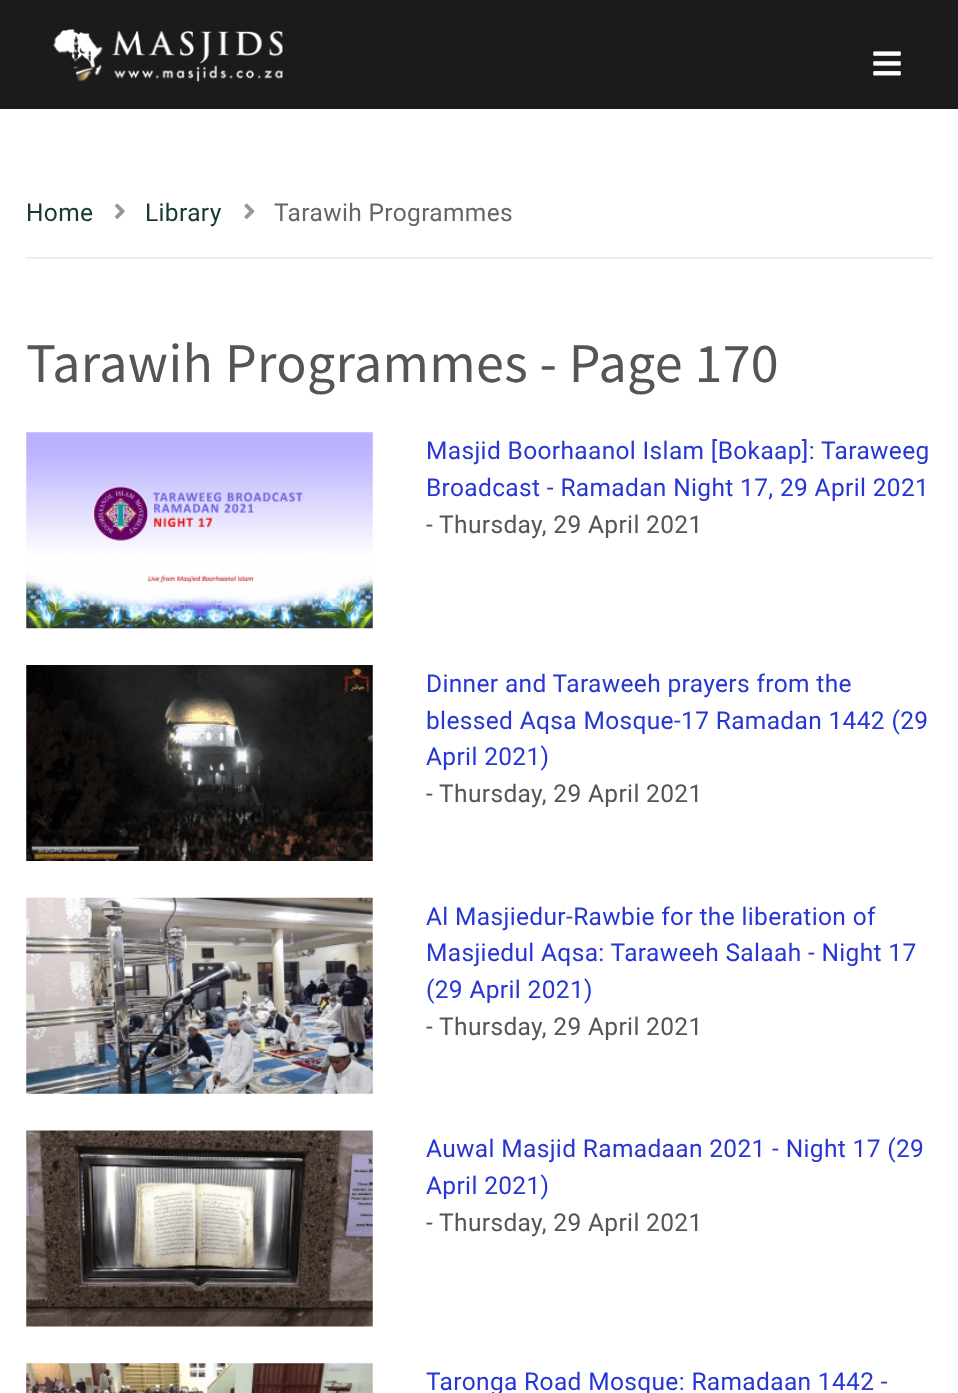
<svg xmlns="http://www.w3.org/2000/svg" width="958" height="1393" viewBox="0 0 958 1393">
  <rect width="100%" height="100%" fill="#fff"/>
  <path d="M0 0h958v109H0z" fill="#1b1b1b"/>
  <image x="53" y="29" width="230" height="53" href="img/1.png"/>
  <image x="873" y="51" width="28" height="25" href="img/2.png"/>
  <path d="M26 257h907v2H26z" fill="#eee"/>
  <image x="115" y="203" width="10" height="16" href="img/3.png"/>
  <image x="244" y="203" width="11" height="16" href="img/4.png"/>
  <image x="26" y="432" width="347" height="197" href="img/5.png"/>
  <image x="26" y="665" width="347" height="196" href="img/6.png"/>
  <image x="26" y="897" width="347" height="197" href="img/7.png"/>
  <image x="26" y="1130" width="347" height="197" href="img/8.png"/>
  <image x="26" y="1363" width="347" height="30" href="img/9.png"/>
  <g font-family="Roboto" font-size="24.5" letter-spacing="0.35" fill="#163a2e">
    <text x="26" y="221">Home</text>
    <text x="145" y="221">Library</text>
  </g>
  <text x="274" y="221" font-family="Roboto" font-size="24.5" letter-spacing="0.35" fill="#666">Tarawih Programmes</text>
  <text x="26" y="382" font-family="Source Sans Pro" font-size="56" letter-spacing="0.35" fill="#555">Tarawih Programmes - Page 170</text>
  <g font-family="Roboto" font-size="24.5" letter-spacing="0.35" fill="#2737d3">
    <text x="426" y="459">Masjid Boorhaanol Islam [Bokaap]: Taraweeg</text>
    <text x="426" y="496">Broadcast - Ramadan Night 17, 29 April 2021</text>
  </g>
  <text x="426" y="533" font-family="Roboto" font-size="24.5" letter-spacing="0.35" fill="#555">- Thursday, 29 April 2021</text>
  <g font-family="Roboto" font-size="24.5" letter-spacing="0.35" fill="#2737d3">
    <text x="426" y="692">Dinner and Taraweeh prayers from the</text>
    <text x="426" y="729">blessed Aqsa Mosque-17 Ramadan 1442 (29</text>
    <text x="426" y="765">April 2021)</text>
  </g>
  <text x="426" y="802" font-family="Roboto" font-size="24.5" letter-spacing="0.35" fill="#555">- Thursday, 29 April 2021</text>
  <g font-family="Roboto" font-size="24.5" letter-spacing="0.35" fill="#2737d3">
    <text x="426" y="925">Al Masjiedur-Rawbie for the liberation of</text>
    <text x="426" y="961">Masjiedul Aqsa: Taraweeh Salaah - Night 17</text>
    <text x="426" y="998">(29 April 2021)</text>
  </g>
  <text x="426" y="1035" font-family="Roboto" font-size="24.5" letter-spacing="0.35" fill="#555">- Thursday, 29 April 2021</text>
  <g font-family="Roboto" font-size="24.5" letter-spacing="0.35" fill="#2737d3">
    <text x="426" y="1157">Auwal Masjid Ramadaan 2021 - Night 17 (29</text>
    <text x="426" y="1194">April 2021)</text>
  </g>
  <text x="426" y="1231" font-family="Roboto" font-size="24.5" letter-spacing="0.35" fill="#555">- Thursday, 29 April 2021</text>
  <text x="426" y="1390" font-family="Roboto" font-size="24.5" letter-spacing="0.35" fill="#2737d3">Taronga Road Mosque: Ramadaan 1442 -</text>
</svg>
